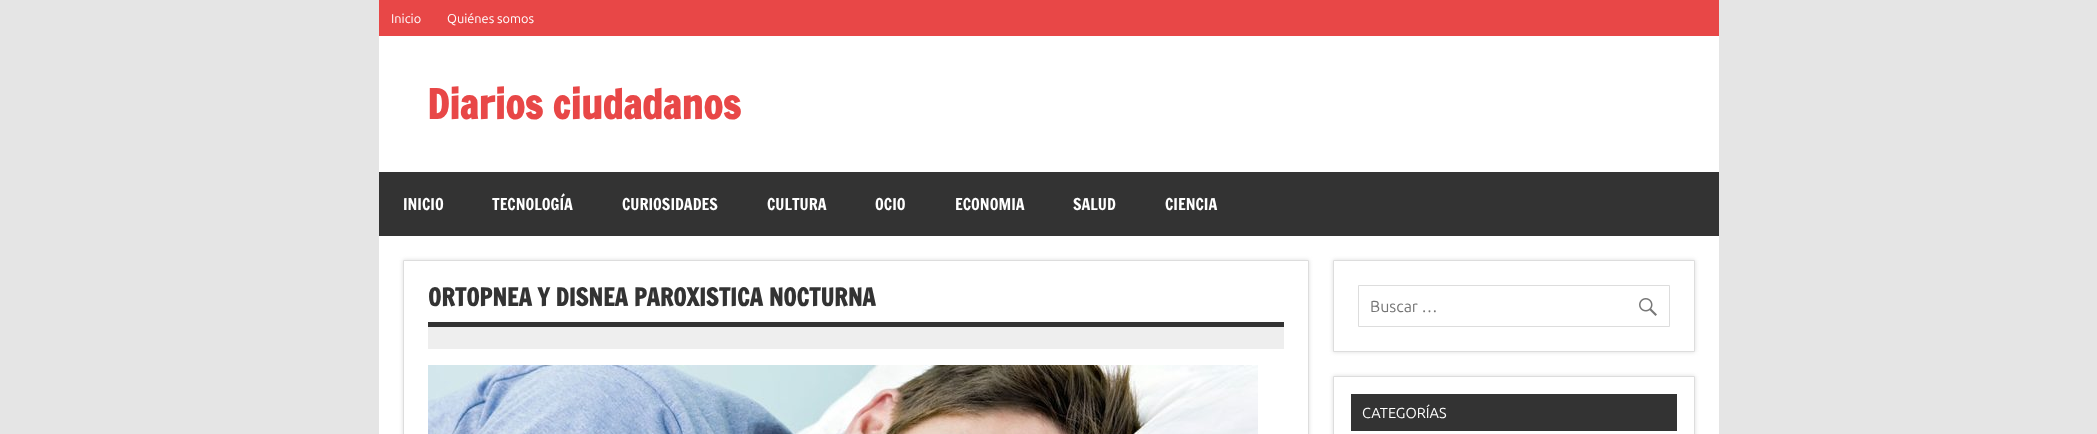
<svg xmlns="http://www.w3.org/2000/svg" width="2097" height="434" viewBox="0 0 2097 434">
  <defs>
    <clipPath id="clip1"><path d="M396 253H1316V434H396ZM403 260H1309V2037H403Z" clip-rule="evenodd"/></clipPath>
    <clipPath id="clip2"><path d="M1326 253H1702V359H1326ZM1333 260H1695V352H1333Z" clip-rule="evenodd"/></clipPath>
    <clipPath id="clip3"><path d="M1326 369H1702V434H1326ZM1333 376H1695V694H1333Z" clip-rule="evenodd"/></clipPath>
  </defs>
  <rect width="100%" height="100%" fill="#e5e5e5"/>
  <path d="M379 36h1340v398H379z" fill="#fff"/>
  <path d="M379 0h1340v36H379z" fill="#e84747"/>
  <path d="M379 172h1340v64H379z" fill="#333"/>
  <g clip-path="url(#clip1)">
    <path d="M403 260h906v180H403z" fill="#ddd" filter="blur(2px)"/>
  </g>
  <path d="M403.5 260.5h905v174H403.5z" fill="none" stroke="#ddd"/>
  <path d="M428 322h856v5H428z" fill="#333"/>
  <path d="M428 327h856v22H428z" fill="#eee"/>
  <image x="428" y="365" width="830" height="69" href="img/1.png"/>
  <g clip-path="url(#clip2)">
    <path d="M1333 260h362v92H1333z" fill="#ddd" filter="blur(2px)"/>
  </g>
  <path d="M1333.5 260.5h361v91H1333.5z" fill="none" stroke="#ddd"/>
  <path d="M1358.5 285.5h311v41H1358.5z" fill="none" stroke="#ddd"/>
  <image x="1639" y="298" width="18" height="18" href="img/2.png"/>
  <g clip-path="url(#clip3)">
    <path d="M1333 376h362v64H1333z" fill="#ddd" filter="blur(2px)"/>
  </g>
  <path d="M1333.5 376.5h361v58H1333.5z" fill="none" stroke="#ddd"/>
  <path d="M1351 394h326v37H1351z" fill="#333"/>
  <g font-family="Ubuntu" font-size="12.75" fill="#fff">
    <text x="391" y="23">Inicio</text>
    <text x="447" y="23">Quiénes somos</text>
  </g>
  <text x="427" y="119" font-family="Francois One" font-size="40" font-weight="bold" fill="#e84747">Diarios ciudadanos</text>
  <g font-family="Francois One" font-size="16" fill="#fff">
    <text x="403" y="210">INICIO</text>
    <text x="492" y="210">TECNOLOGÍA</text>
    <text x="622" y="210">CURIOSIDADES</text>
    <text x="767" y="210">CULTURA</text>
    <text x="875" y="210">OCIO</text>
    <text x="955" y="210">ECONOMIA</text>
    <text x="1073" y="210">SALUD</text>
    <text x="1165" y="210">CIENCIA</text>
  </g>
  <text x="428" y="306" font-family="Francois One" font-size="24" font-weight="bold" fill="#333">ORTOPNEA Y DISNEA PAROXISTICA NOCTURNA</text>
  <text x="1370" y="312" font-family="Ubuntu" font-size="16" fill="#757575">Buscar …</text>
  <text x="1362" y="418" font-family="Ubuntu" font-size="14.5" fill="#fff">CATEGORÍAS</text>
</svg>
